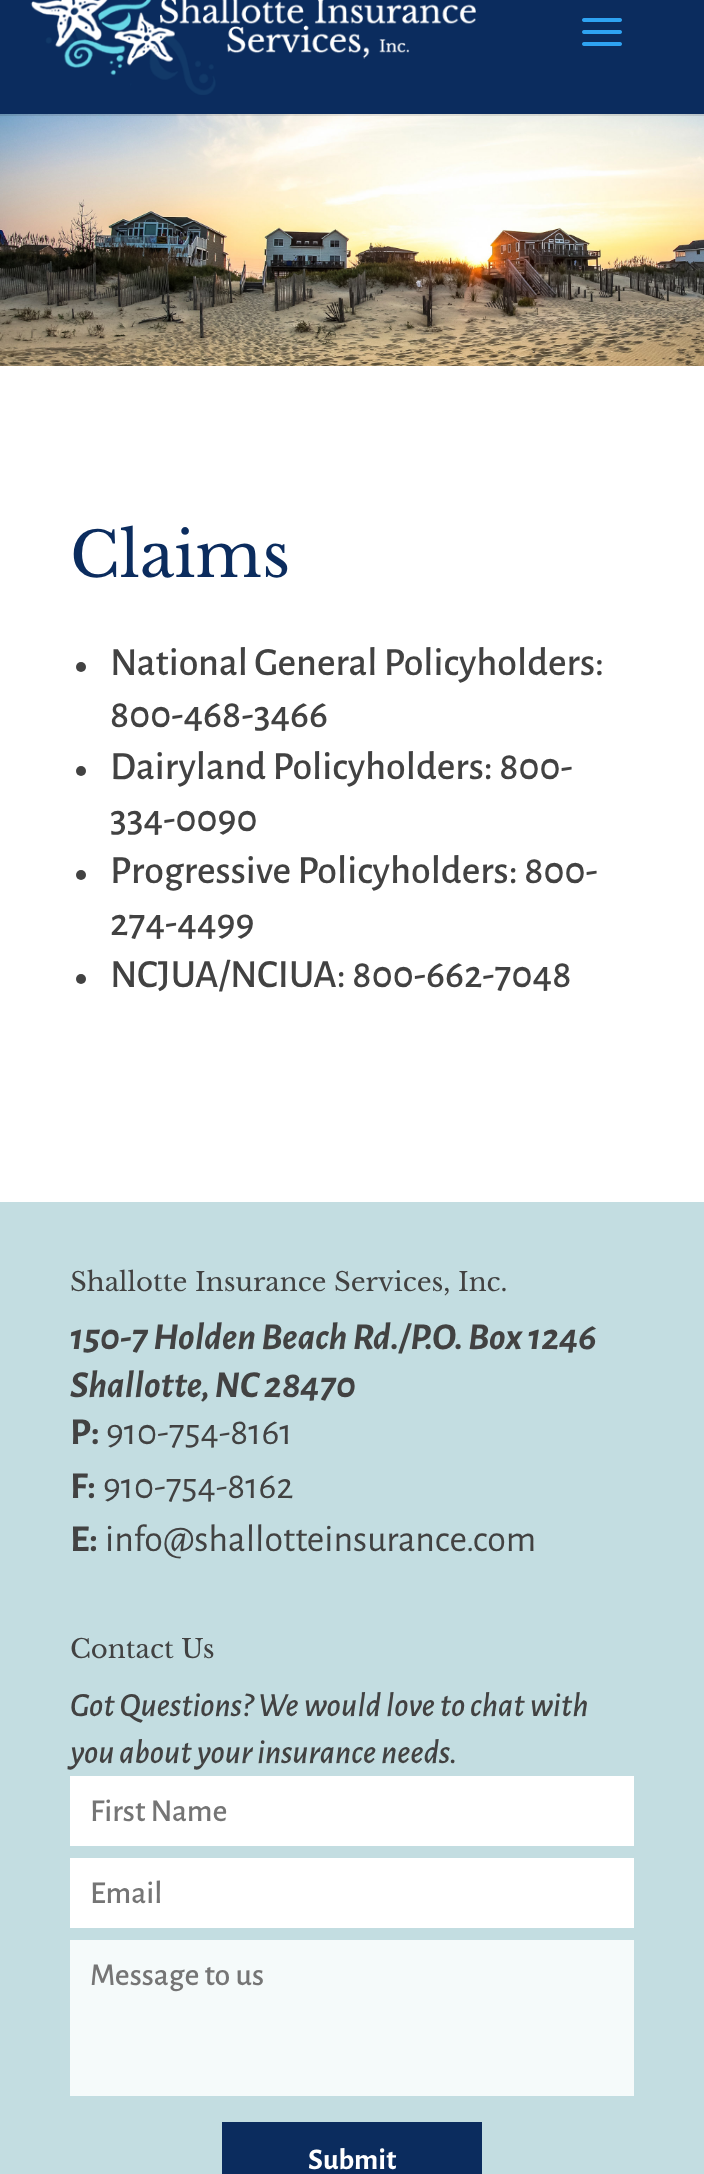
<svg xmlns="http://www.w3.org/2000/svg" width="704" height="2174" viewBox="0 0 704 2174">
  <rect width="100%" height="100%" fill="#fff"/>
  <image x="0" y="114" width="704" height="252" href="img/3.png"/>
  <path d="M0 114h704v2H0z" fill="#0000001a"/>
  <path d="M0 0h704v114H0z" fill="#0b2c5e"/>
  <image x="30" y="0" width="446" height="95" href="img/1.png"/>
  <image x="582" y="18" width="40" height="28" href="img/2.png"/>
  <circle cx="81" cy="667" r="5" fill="#424242"/>
  <circle cx="81" cy="771" r="5" fill="#424242"/>
  <circle cx="81" cy="875" r="5" fill="#424242"/>
  <circle cx="81" cy="979" r="5" fill="#424242"/>
  <path d="M0 1202h704v972H0z" fill="#c3dde1"/>
  <path d="M70 1776h564v70H70z" fill="#fff"/>
  <path d="M70 1858h564v70H70z" fill="#fff"/>
  <path d="M70 1940h564v156H70z" fill="#f5fafa"/>
  <path d="M222 2122h260v52H222z" fill="#0b2c5e"/>
  <text x="70" y="577" font-family="Libre Baskerville" font-size="62" fill="#0b2c5e">Claims</text>
  <g font-family="Alegreya Sans" font-size="40" font-weight="500" fill="#424242">
    <text x="110" y="675">National General Policyholders:</text>
    <text x="110" y="727">800-468-3466</text>
    <text x="110" y="779">Dairyland Policyholders: 800-</text>
    <text x="110" y="831">334-0090</text>
    <text x="110" y="883">Progressive Policyholders: 800-</text>
    <text x="110" y="935">274-4499</text>
    <text x="110" y="987">NCJUA/NCIUA: 800-662-7048</text>
  </g>
  <text x="70" y="1291" font-family="Libre Baskerville" font-size="26" fill="#424242">Shallotte Insurance Services, Inc.</text>
  <g font-family="Alegreya Sans" font-size="38" font-weight="bold" font-style="italic" fill="#424242">
    <text x="70" y="1349">150-7 Holden Beach Rd./P.O. Box 1246</text>
    <text x="70" y="1397">Shallotte, NC 28470</text>
  </g>
  <text x="70" y="1444" font-family="Alegreya Sans" font-size="38" font-weight="bold" fill="#424242">P:</text>
  <text x="106" y="1444" font-family="Alegreya Sans" font-size="38" fill="#424242">910-754-8161</text>
  <text x="70" y="1498" font-family="Alegreya Sans" font-size="38" font-weight="bold" fill="#424242">F:</text>
  <text x="103" y="1498" font-family="Alegreya Sans" font-size="38" fill="#424242">910-754-8162</text>
  <text x="70" y="1551" font-family="Alegreya Sans" font-size="38" font-weight="bold" fill="#424242">E:</text>
  <text x="105" y="1551" font-family="Alegreya Sans" font-size="38" fill="#424242">info@shallotteinsurance.com</text>
  <text x="70" y="1658" font-family="Libre Baskerville" font-size="26" fill="#424242">Contact Us</text>
  <g font-family="Alegreya Sans" font-size="34" font-weight="500" font-style="italic" fill="#424242">
    <text x="70" y="1716">Got Questions? We would love to chat with</text>
    <text x="70" y="1763">you about your insurance needs.</text>
  </g>
  <g font-family="Alegreya Sans" font-size="32" font-weight="500" fill="#757575">
    <text x="90" y="1821">First Name</text>
    <text x="90" y="1903">Email</text>
    <text x="90" y="1985">Message to us</text>
  </g>
  <text x="308" y="2169" font-family="Alegreya Sans" font-size="30" font-weight="bold" fill="#fff">Submit</text>
</svg>
